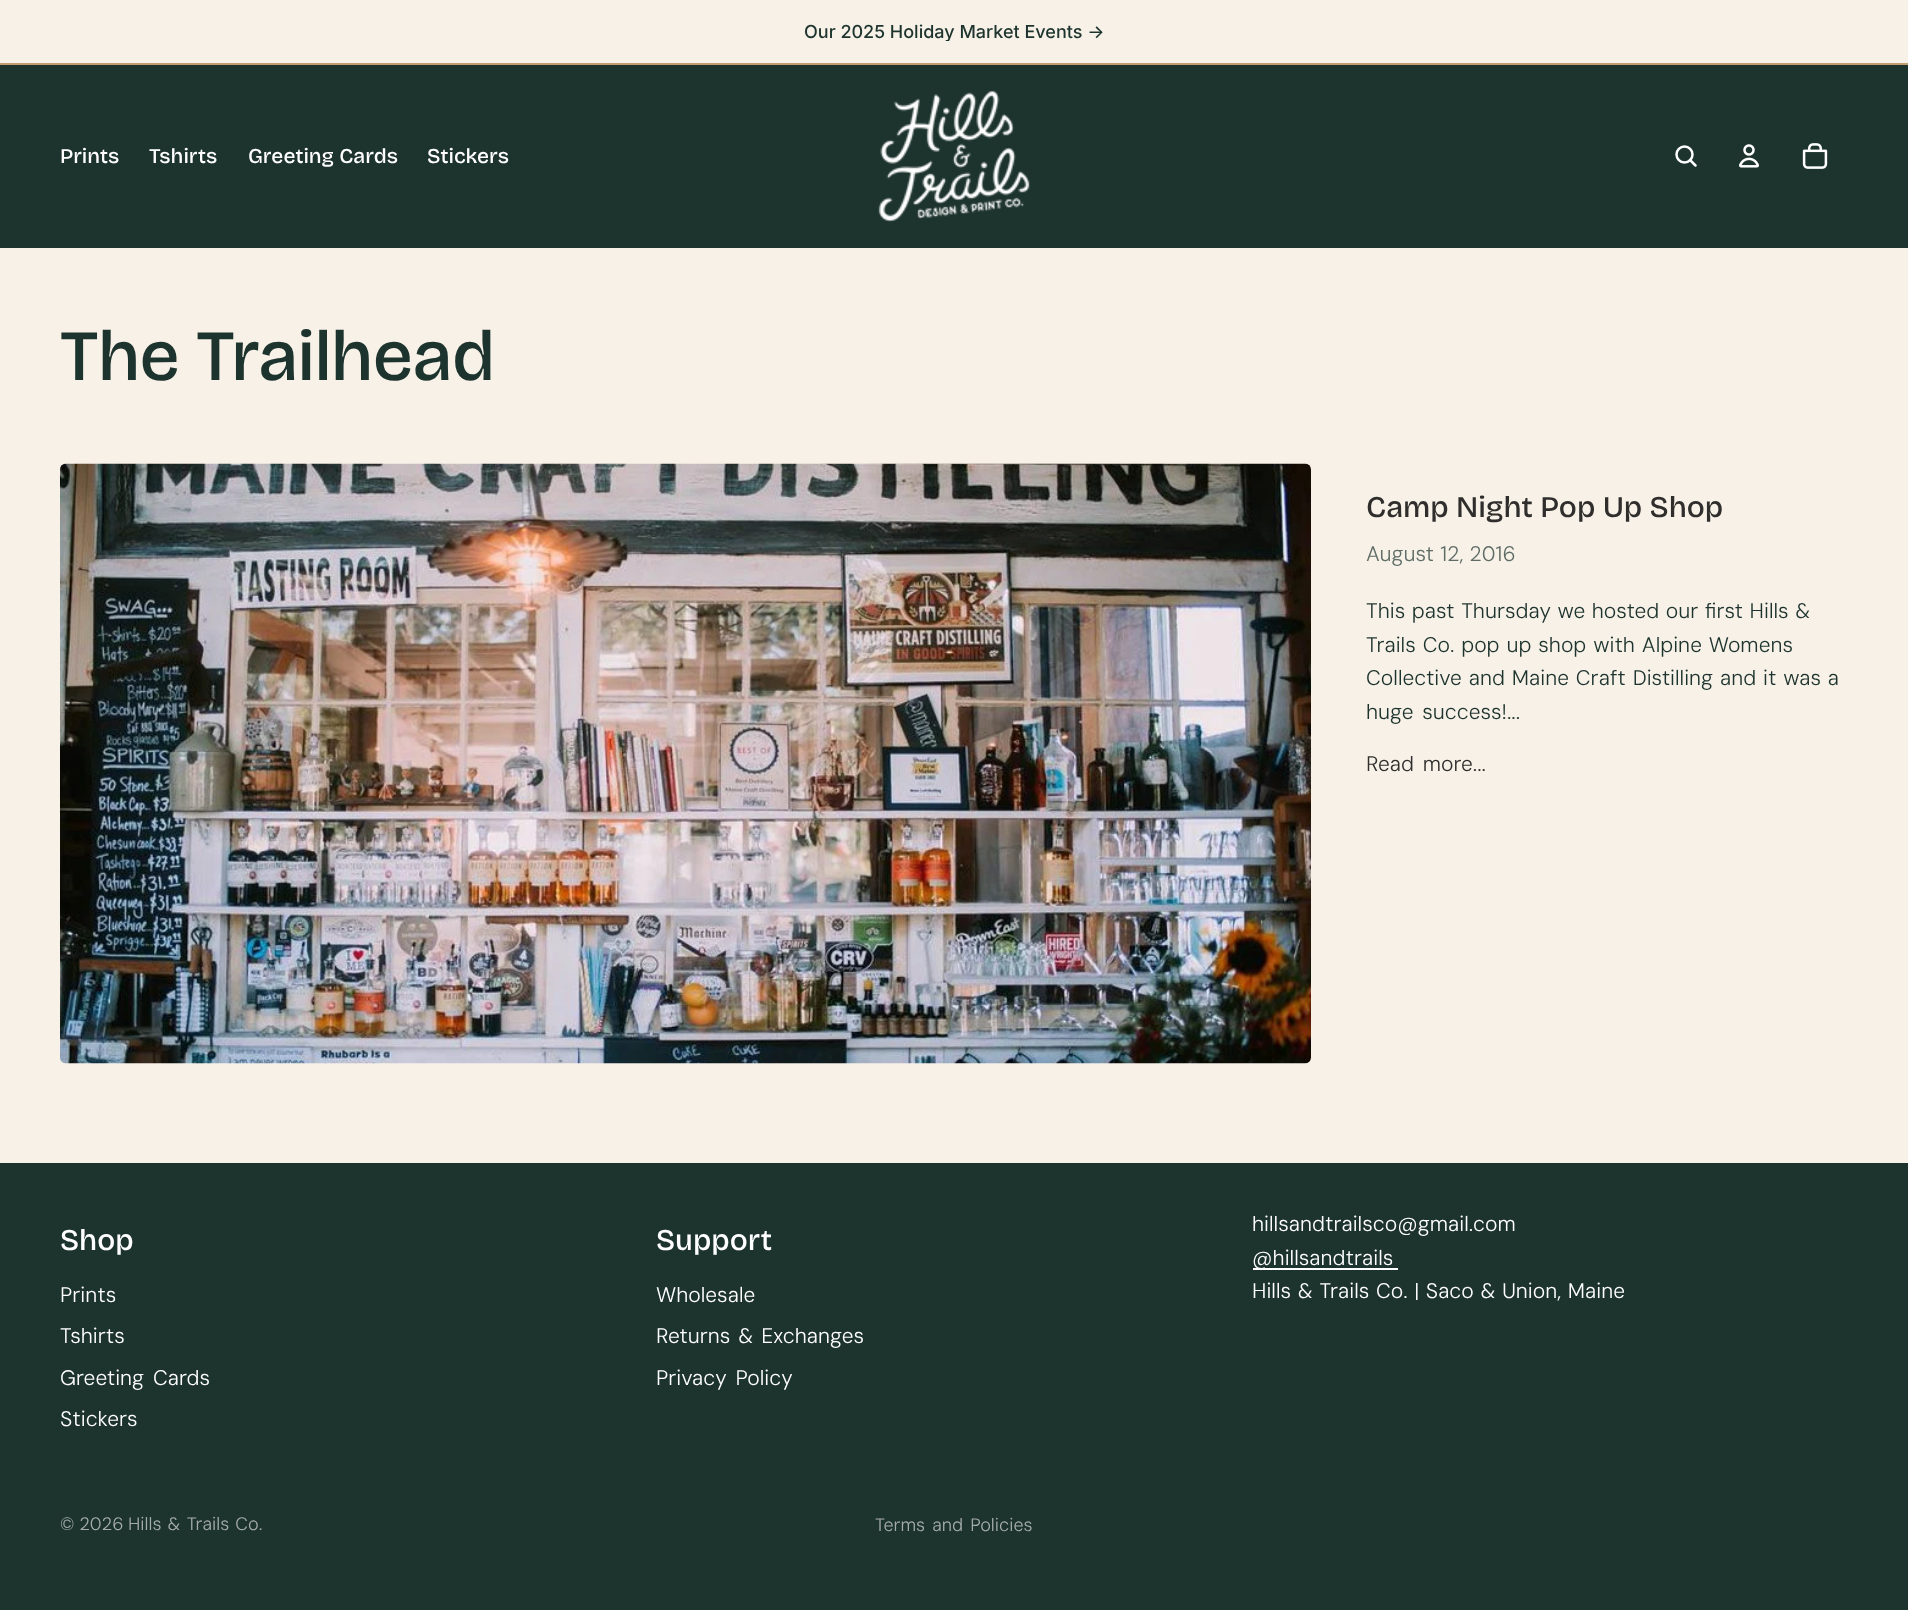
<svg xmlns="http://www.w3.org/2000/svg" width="1908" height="1610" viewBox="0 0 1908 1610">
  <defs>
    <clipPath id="clip1"><path d="M444 23h1020v18H444z"/></clipPath>
  </defs>
  <rect width="100%" height="100%" fill="#f7f1e8"/>
  <path d="M0 63h1908v2H0z" fill="#c19d6f"/>
  <path d="M0 65h1908v183H0z" fill="#1d332d"/>
  <image x="878" y="90" width="152" height="132" href="img/1.png"/>
  <circle cx="1684.5" cy="154.5" r="8" fill="none" stroke="#fff" stroke-width="2.5"/>
  <path d="M1690 160L1695.5 165.5" fill="none" stroke="#fff" stroke-width="2.5" stroke-linecap="round" stroke-linejoin="round"/>
  <image x="1739" y="144" width="20" height="24" href="img/2.png"/>
  <image x="1802" y="143" width="26" height="26" href="img/3.png"/>
  <image x="60" y="463" width="1251" height="601" href="img/4.png"/>
  <path d="M0 1163h1908v447H0z" fill="#1d332d"/>
  <path d="M1253 1268h145v2H1253z" fill="#fff"/>
  <g clip-path="url(#clip1)">
    <text x="804" y="38" font-family="Inter" font-size="18" font-weight="500" fill="#1d332d">Our 2025 Holiday Market Events -&gt;</text>
  </g>
  <g font-family="'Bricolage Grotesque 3'" font-size="21" font-weight="500" fill="#fff">
    <text x="60" y="163">Prints</text>
    <text x="149" y="163">Tshirts</text>
    <text x="248" y="163">Greeting Cards</text>
    <text x="427" y="163">Stickers</text>
  </g>
  <text x="60" y="380" font-family="Bricolage Grotesque" font-size="72" font-weight="500" fill="#1d332d">The Trailhead</text>
  <text x="1366" y="517" font-family="'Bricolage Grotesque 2'" font-size="30" font-weight="500" fill="#2f2e2c">Camp Night Pop Up Shop</text>
  <text x="1366" y="561" font-family="DM Sans" font-size="21" font-weight="300" fill="#5e6c65">August 12, 2016</text>
  <g font-family="DM Sans" font-size="21" font-weight="300" fill="#1d332d">
    <text x="1366" y="618" word-spacing="0.75">This past Thursday we hosted our first Hills &amp;</text>
    <text x="1366" y="652" word-spacing="1">Trails Co. pop up shop with Alpine Womens</text>
    <text x="1366" y="685" word-spacing="1">Collective and Maine Craft Distilling and it was a</text>
    <text x="1366" y="719" word-spacing="3">huge success!...</text>
  </g>
  <text x="1366" y="771" word-spacing="3" font-family="DM Sans" font-size="21" font-weight="300" fill="#2f2e2c">Read more...</text>
  <text x="60" y="1250" font-family="'Bricolage Grotesque 2'" font-size="30" font-weight="500" fill="#fff">Shop</text>
  <g font-family="DM Sans" font-size="21" font-weight="300" fill="#fff">
    <text x="60" y="1302">Prints</text>
    <text x="60" y="1343">Tshirts</text>
    <text x="60" y="1385" word-spacing="3">Greeting Cards</text>
    <text x="60" y="1426">Stickers</text>
  </g>
  <text x="656" y="1250" font-family="'Bricolage Grotesque 2'" font-size="30" font-weight="500" fill="#fff">Support</text>
  <g font-family="DM Sans" font-size="21" font-weight="300" fill="#fff">
    <text x="656" y="1302">Wholesale</text>
    <text x="656" y="1343" word-spacing="2">Returns &amp; Exchanges</text>
    <text x="656" y="1385" word-spacing="3">Privacy Policy</text>
    <text x="1252" y="1231">hillsandtrailsco@gmail.com</text>
    <text x="1252" y="1265">@hillsandtrails</text>
    <text x="1252" y="1298" word-spacing="0.75">Hills &amp; Trails Co. | Saco &amp; Union, Maine</text>
  </g>
  <g font-family="DM Sans" font-size="18" font-weight="300" fill="#a5adab">
    <text x="60" y="1530">© 2026</text>
    <text x="128" y="1530" word-spacing="1">Hills &amp; Trails Co.</text>
    <text x="875" y="1531" word-spacing="2">Terms and Policies</text>
  </g>
</svg>
